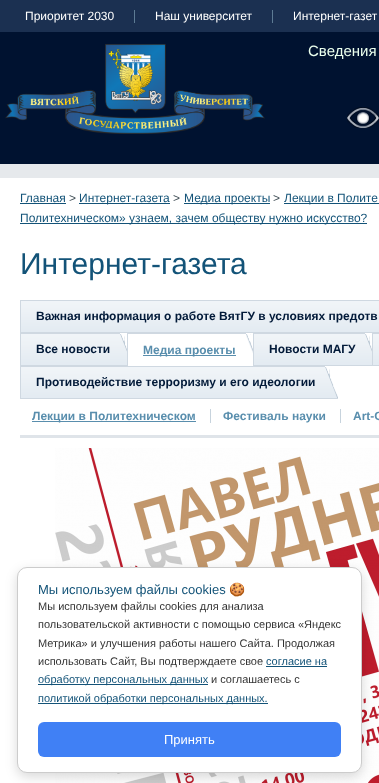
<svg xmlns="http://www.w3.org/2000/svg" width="379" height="783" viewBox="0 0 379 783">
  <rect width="100%" height="100%" fill="#fff"/>
  <path d="M0 0h379v32H0z" fill="#1b3051"/>
  <path d="M134 10h1v13H134z" fill="#5d7b94"/>
  <path d="M272 10h1v13H272z" fill="#5d7b94"/>
  <path d="M0 32h379v132H0z" fill="#001230"/>
  <path d="M0 164h379v14H0z" fill="#e6e9ec"/>
  <image x="5" y="44" width="260" height="90" href="img/1.png"/>
  <image x="347" y="107" width="32" height="21" href="img/2.png"/>
  <path d="M20 203h46v1H20z" fill="#135378"/>
  <path d="M79 203h91v1H79z" fill="#135378"/>
  <path d="M184 203h86v1H184z" fill="#135378"/>
  <path d="M284 203h95v1H284z" fill="#135378"/>
  <path d="M20 223h347v1H20z" fill="#135378"/>
  <image x="21" y="301" width="15" height="31" href="img/3.png"/>
  <path d="M20 300h359v1H20z" fill="#cfd8e1"/>
  <path d="M20 332h359v1H20z" fill="#cfd8e1"/>
  <path d="M20 300h1v33H20z" fill="#cfd8e1"/>
  <image x="36" y="301" width="343" height="31" href="img/4.png"/>
  <image x="21" y="334" width="15" height="31" href="img/3.png"/>
  <path d="M20 333h100v1H20z" fill="#cfd8e1"/>
  <path d="M20 365h113v1H20z" fill="#cfd8e1"/>
  <path d="M20 333h1v33H20z" fill="#cfd8e1"/>
  <image x="36" y="334" width="84" height="31" href="img/5.png"/>
  <image x="120" y="334" width="7" height="31" href="img/6.png"/>
  <path d="M128 365h5v1H128z" fill="#fff"/>
  <path d="M127 333h119v1H127z" fill="#cfd8e1"/>
  <path d="M127 333h1v33H127z" fill="#cfd8e1"/>
  <image x="246" y="334" width="7" height="31" href="img/7.png"/>
  <path d="M143 355h93v1H143z" fill="#598ead"/>
  <image x="254" y="334" width="15" height="31" href="img/3.png"/>
  <path d="M253 333h112v1H253z" fill="#cfd8e1"/>
  <path d="M253 365h126v1H253z" fill="#cfd8e1"/>
  <path d="M253 333h1v33H253z" fill="#cfd8e1"/>
  <image x="269" y="334" width="96" height="31" href="img/8.png"/>
  <image x="365" y="334" width="7" height="31" href="img/6.png"/>
  <image x="373" y="334" width="6" height="31" href="img/9.png"/>
  <path d="M372 333h7v1H372z" fill="#cfd8e1"/>
  <path d="M372 333h1v33H372z" fill="#cfd8e1"/>
  <image x="21" y="367" width="15" height="31" href="img/3.png"/>
  <path d="M20 366h305v1H20z" fill="#cfd8e1"/>
  <path d="M20 398h318v1H20z" fill="#cfd8e1"/>
  <path d="M20 366h1v33H20z" fill="#cfd8e1"/>
  <image x="36" y="367" width="289" height="31" href="img/10.png"/>
  <image x="325" y="367" width="13" height="31" href="img/11.png"/>
  <path d="M20 435h359v3H20z" fill="#dfe4e9"/>
  <path d="M32 421h164v1H32z" fill="#598ead"/>
  <path d="M210 409h1v14H210z" fill="#c7d3dd"/>
  <path d="M340 409h1v14H340z" fill="#c7d3dd"/>
  <image x="55" y="448" width="324" height="335" href="img/12.png"/>
  <rect x="17" y="571" width="345" height="206" rx="10" fill="#00000026" filter="blur(6px)"/>
  <rect x="17.5" y="567.5" width="344" height="205" rx="9.5" fill="#fff" stroke="#ccc"/>
  <path d="M266 666h61v1H266z" fill="#135378"/>
  <path d="M38 684h170v1H38z" fill="#135378"/>
  <path d="M38 703h230v1H38z" fill="#135378"/>
  <rect x="38" y="722" width="303" height="35" rx="6" fill="#4080f5"/>
  <g font-family="Liberation Sans" font-size="12" fill="#fff">
    <text x="25" y="20">Приоритет 2030</text>
    <text x="155" y="20">Наш университет</text>
    <text x="293" y="20">Интернет-газет</text>
  </g>
  <text x="308" y="56" font-family="Liberation Sans" font-size="15" fill="#eaffed">Сведения</text>
  <text x="20" y="202" font-family="Liberation Sans" font-size="12" fill="#135378">Главная</text>
  <text x="69" y="202" font-family="Liberation Sans" font-size="12" fill="#3d4b53">&gt;</text>
  <text x="79" y="202" font-family="Liberation Sans" font-size="12" fill="#135378">Интернет-газета</text>
  <text x="173" y="202" font-family="Liberation Sans" font-size="12" fill="#3d4b53">&gt;</text>
  <text x="184" y="202" font-family="Liberation Sans" font-size="12" fill="#135378">Медиа проекты</text>
  <text x="273" y="202" font-family="Liberation Sans" font-size="12" fill="#3d4b53">&gt;</text>
  <g font-family="Liberation Sans" font-size="12" fill="#135378">
    <text x="284" y="202">Лекции в Полите</text>
    <text x="20" y="222">Политехническом» узнаем, зачем обществу нужно искусство?</text>
  </g>
  <text x="20" y="274" font-family="Liberation Sans" font-size="30" fill="#135378">Интернет-газета</text>
  <g font-family="Liberation Sans" font-size="12" font-weight="bold" fill="#021a39">
    <text x="36" y="320">Важная информация о работе ВятГУ в условиях предотв</text>
    <text x="36" y="353">Все новости</text>
  </g>
  <text x="143" y="354" font-family="Liberation Sans" font-size="12" font-weight="bold" fill="#598ead">Медиа проекты</text>
  <g font-family="Liberation Sans" font-size="12" font-weight="bold" fill="#021a39">
    <text x="269" y="353">Новости МАГУ</text>
    <text x="36" y="386">Противодействие терроризму и его идеологии</text>
  </g>
  <g font-family="Liberation Sans" font-size="12" font-weight="bold" fill="#598ead">
    <text x="32" y="420">Лекции в Политехническом</text>
    <text x="223" y="420">Фестиваль науки</text>
    <text x="353" y="420">Art-С</text>
  </g>
  <text x="38" y="594" font-family="Liberation Sans" font-size="13" fill="#135378">Мы используем файлы cookies</text>
  <text x="229" y="594" font-family="Noto Color Emoji" font-size="13" fill="#135378">🍪</text>
  <g font-family="Liberation Sans" font-size="11" fill="#333">
    <text x="38" y="610">Мы используем файлы cookies для анализа</text>
    <text x="38" y="628">пользовательской активности с помощью сервиса «Яндекс</text>
    <text x="38" y="647">Метрика» и улучшения работы нашего Сайта. Продолжая</text>
    <text x="38" y="665">использовать Сайт, Вы подтверждаете свое</text>
  </g>
  <g font-family="Liberation Sans" font-size="11" fill="#135378">
    <text x="266" y="665">согласие на</text>
    <text x="38" y="683">обработку персональных данных</text>
  </g>
  <text x="211" y="683" font-family="Liberation Sans" font-size="11" fill="#333">и соглашаетесь с</text>
  <text x="38" y="702" font-family="Liberation Sans" font-size="11" fill="#135378">политикой обработки персональных данных.</text>
  <text x="164" y="744" font-family="Liberation Sans" font-size="13" fill="#fff">Принять</text>
</svg>
